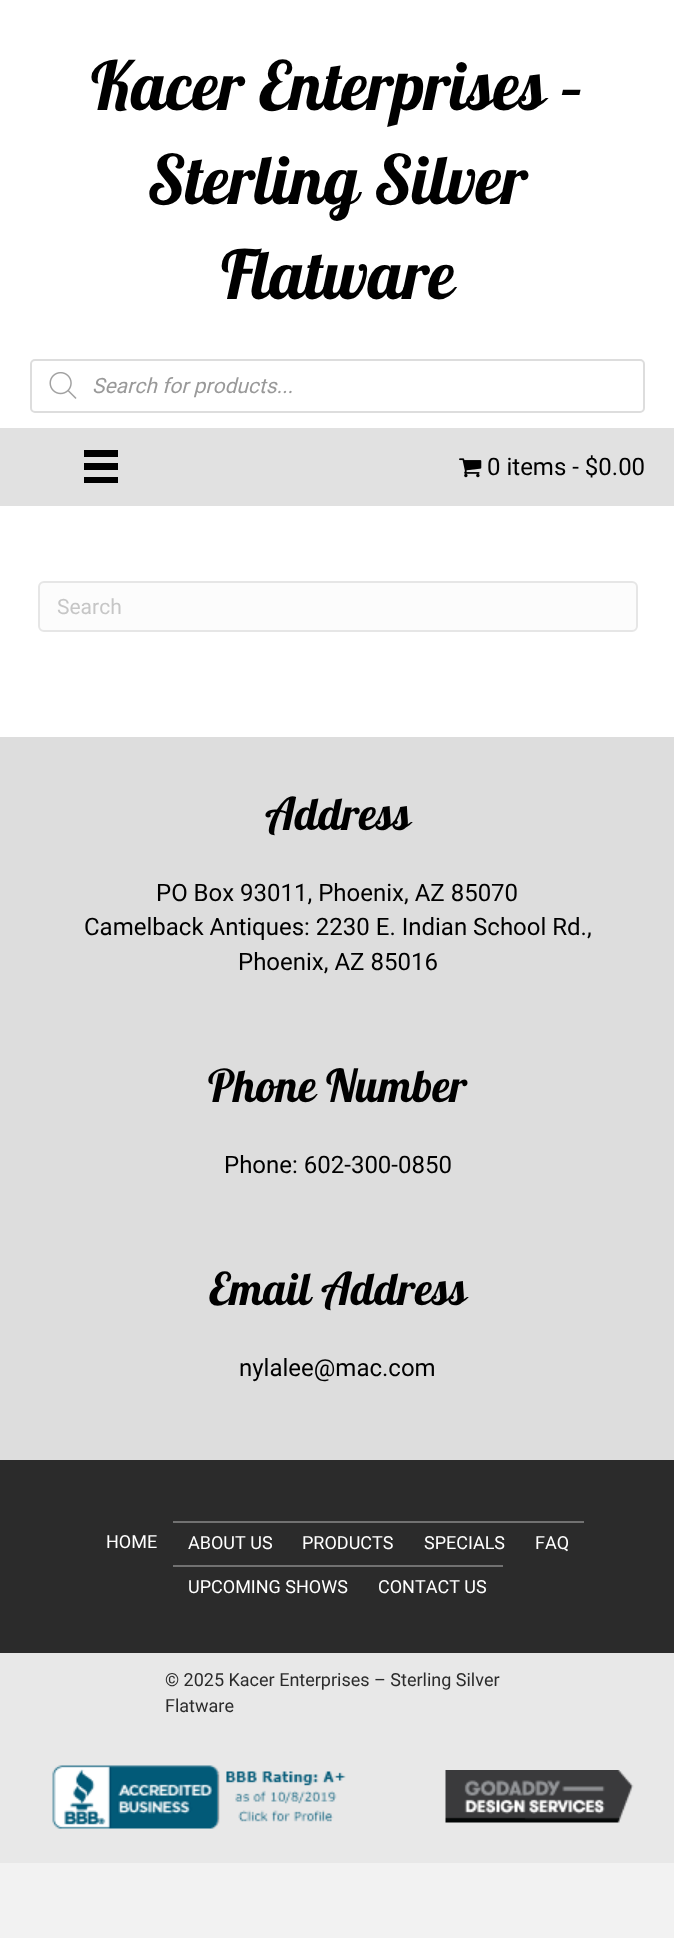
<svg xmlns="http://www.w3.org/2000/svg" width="674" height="1938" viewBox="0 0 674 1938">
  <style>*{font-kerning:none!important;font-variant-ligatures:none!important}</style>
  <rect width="100%" height="100%" fill="#f2f2f2"/>
  <path d="M0 0h674v428H0z" fill="#fff"/>
  <rect x="31" y="360" width="613" height="52" rx="4" fill="none" stroke="#ddd" stroke-width="2"/>
  <image x="49" y="372" width="28" height="27" href="img/1.png"/>
  <path d="M0 428h674v78H0z" fill="#e1e1e1"/>
  <path d="M84 450h34v7H84z" fill="#000"/>
  <path d="M84 463h34v7H84z" fill="#000"/>
  <path d="M84 477h34v6H84z" fill="#000"/>
  <image x="459" y="458" width="23" height="20" href="img/2.png"/>
  <path d="M0 506h674v231H0z" fill="#fff"/>
  <rect x="39" y="582" width="598" height="49" rx="5" fill="#fcfcfc" stroke="#e6e6e6" stroke-width="2"/>
  <path d="M0 737h674v723H0z" fill="#ddd"/>
  <path d="M0 1460h674v193H0z" fill="#2b2b2b"/>
  <path d="M173 1521h411v2H173z" fill="#717171"/>
  <path d="M173 1565h330v2H173z" fill="#717171"/>
  <path d="M0 1653h674v210H0z" fill="#e8e8e8"/>
  <image x="52" y="1765" width="294" height="64" href="img/3.png"/>
  <image x="445" y="1770" width="189" height="53" href="img/4.png"/>
  <g font-family="Lobster" font-size="67.5" fill="#000">
    <text x="91" y="110">Kacer Enterprises –</text>
    <text x="147" y="204">Sterling Silver</text>
    <text x="221" y="299">Flatware</text>
  </g>
  <text x="92" y="393" font-family="Roboto" font-size="21" font-style="italic" fill="#999">Search for products...</text>
  <text x="487" y="475" font-family="Roboto" font-size="24" fill="#000">0 items - $0.00</text>
  <text x="57" y="614" font-family="Roboto" font-size="21" fill="#c6c6c6">Search</text>
  <text x="265" y="830" font-family="Lobster" font-size="45" fill="#000">Address</text>
  <g font-family="Roboto" font-size="24" fill="#000">
    <text x="156" y="901">PO Box 93011, Phoenix, AZ 85070</text>
    <text x="84" y="935">Camelback Antiques: 2230 E. Indian School Rd.,</text>
    <text x="238" y="970">Phoenix, AZ 85016</text>
  </g>
  <text x="208" y="1102" font-family="Lobster" font-size="45" fill="#000">Phone Number</text>
  <text x="224" y="1173" font-family="Roboto" font-size="24" fill="#000">Phone: 602-300-0850</text>
  <text x="209" y="1305" font-family="Lobster" font-size="45" fill="#000">Email Address</text>
  <text x="239" y="1376" font-family="Roboto" font-size="24" fill="#000">nylalee@mac.com</text>
  <g font-family="Roboto" font-size="18" fill="#fff">
    <text x="106" y="1548">HOME</text>
    <text x="188" y="1549">ABOUT US</text>
    <text x="302" y="1549">PRODUCTS</text>
    <text x="424" y="1549">SPECIALS</text>
    <text x="535" y="1549">FAQ</text>
    <text x="188" y="1593">UPCOMING SHOWS</text>
    <text x="378" y="1593">CONTACT US</text>
  </g>
  <g font-family="Roboto" font-size="18" fill="#2b2b2b">
    <text x="165" y="1686">© 2025 Kacer Enterprises – Sterling Silver</text>
    <text x="165" y="1712">Flatware</text>
  </g>
</svg>
